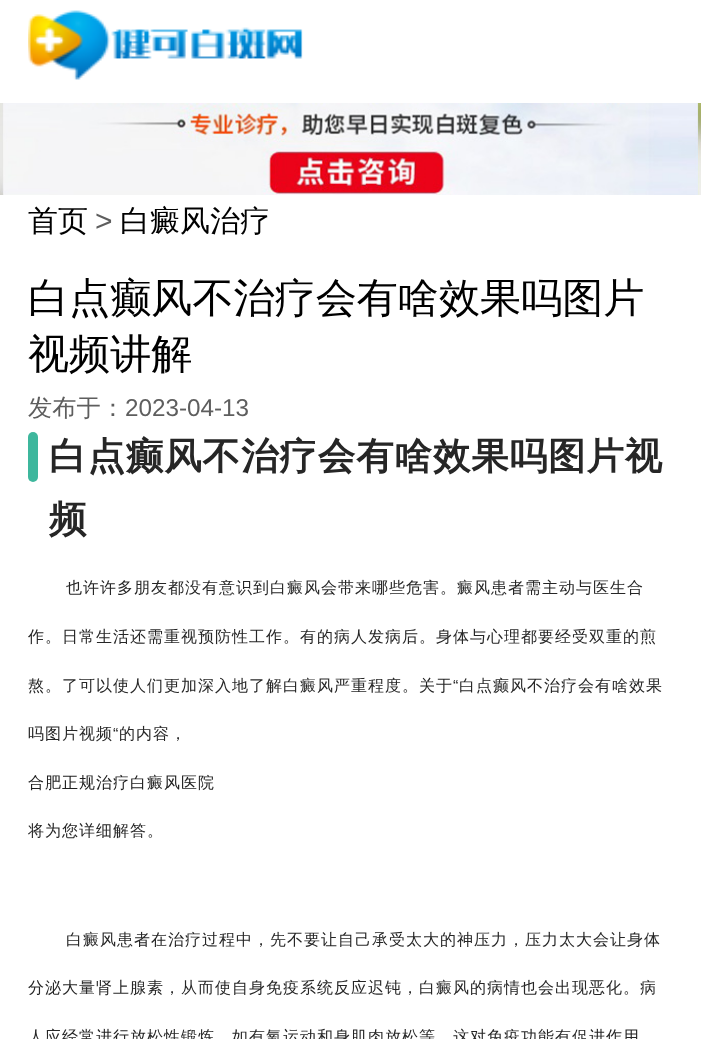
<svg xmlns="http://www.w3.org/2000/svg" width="701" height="1039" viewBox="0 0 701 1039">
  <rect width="100%" height="100%" fill="#fff"/>
  <image x="28" y="10" width="275" height="70" href="img/1.png"/>
  <image x="0" y="103" width="701" height="92" href="img/2.png"/>
  <rect x="28" y="432" width="10" height="50" rx="5" fill="#3eb79d"/>
  <text x="28" y="231" font-family="WenQuanYi Zen Hei" font-size="30" font-weight="500" fill="#000">首页</text>
  <text x="95" y="231" font-family="Liberation Sans" font-size="30" fill="#5e5e5e">&gt;</text>
  <text x="120" y="231" font-family="WenQuanYi Zen Hei" font-size="30" font-weight="500" fill="#000">白癜风治疗</text>
  <g font-family="WenQuanYi Zen Hei" font-size="41.1" font-weight="500" fill="#000">
    <text x="28" y="312">白点癫风不治疗会有啥效果吗图片</text>
    <text x="28" y="368">视频讲解</text>
  </g>
  <text x="28" y="416" font-family="WenQuanYi Zen Hei" font-size="24.25" font-weight="500" fill="#5e5e5e">发布于：</text>
  <text x="125" y="416" font-family="Liberation Sans" font-size="24.25" fill="#5e5e5e">2023-04-13</text>
  <g font-family="WenQuanYi Zen Hei" font-size="37.4" font-weight="bold" letter-spacing="1" fill="#262626">
    <text x="49" y="469">白点癫风不治疗会有啥效果吗图片视</text>
    <text x="49" y="532">频</text>
  </g>
  <g font-family="WenQuanYi Zen Hei" font-size="16" font-weight="500" letter-spacing="1" fill="#262626">
    <text x="66" y="593">也许许多朋友都没有意识到白癜风会带来哪些危害。癜风患者需主动与医生合</text>
    <text x="28" y="642">作。日常生活还需重视预防性工作。有的病人发病后。身体与心理都要经受双重的煎</text>
    <text x="28" y="691">熬。了可以使人们更加深入地了解白癜风严重程度。关于</text>
  </g>
  <text x="453" y="691" font-family="Liberation Sans" font-size="16" letter-spacing="1" fill="#262626">“</text>
  <g font-family="WenQuanYi Zen Hei" font-size="16" font-weight="500" letter-spacing="1" fill="#262626">
    <text x="459" y="691">白点癫风不治疗会有啥效果</text>
    <text x="28" y="739">吗图片视频</text>
  </g>
  <text x="113" y="739" font-family="Liberation Sans" font-size="16" letter-spacing="1" fill="#262626">“</text>
  <text x="119" y="739" font-family="WenQuanYi Zen Hei" font-size="16" font-weight="500" letter-spacing="1" fill="#262626">的内容，</text>
  <text x="28" y="788" font-family="WenQuanYi Zen Hei" font-size="16" font-weight="500" letter-spacing="1" fill="#202020">合肥正规治疗白癜风医院</text>
  <g font-family="WenQuanYi Zen Hei" font-size="16" font-weight="500" letter-spacing="1" fill="#262626">
    <text x="28" y="836">将为您详细解答。</text>
    <text x="66" y="945">白癜风患者在治疗过程中，先不要让自己承受太大的神压力，压力太大会让身体</text>
    <text x="28" y="993">分泌大量肾上腺素，从而使自身免疫系统反应迟钝，白癜风的病情也会出现恶化。病</text>
    <text x="28" y="1042">人应经常进行放松性锻炼，如有氧运动和身肌肉放松等，这对免疫功能有促进作用</text>
  </g>
</svg>
